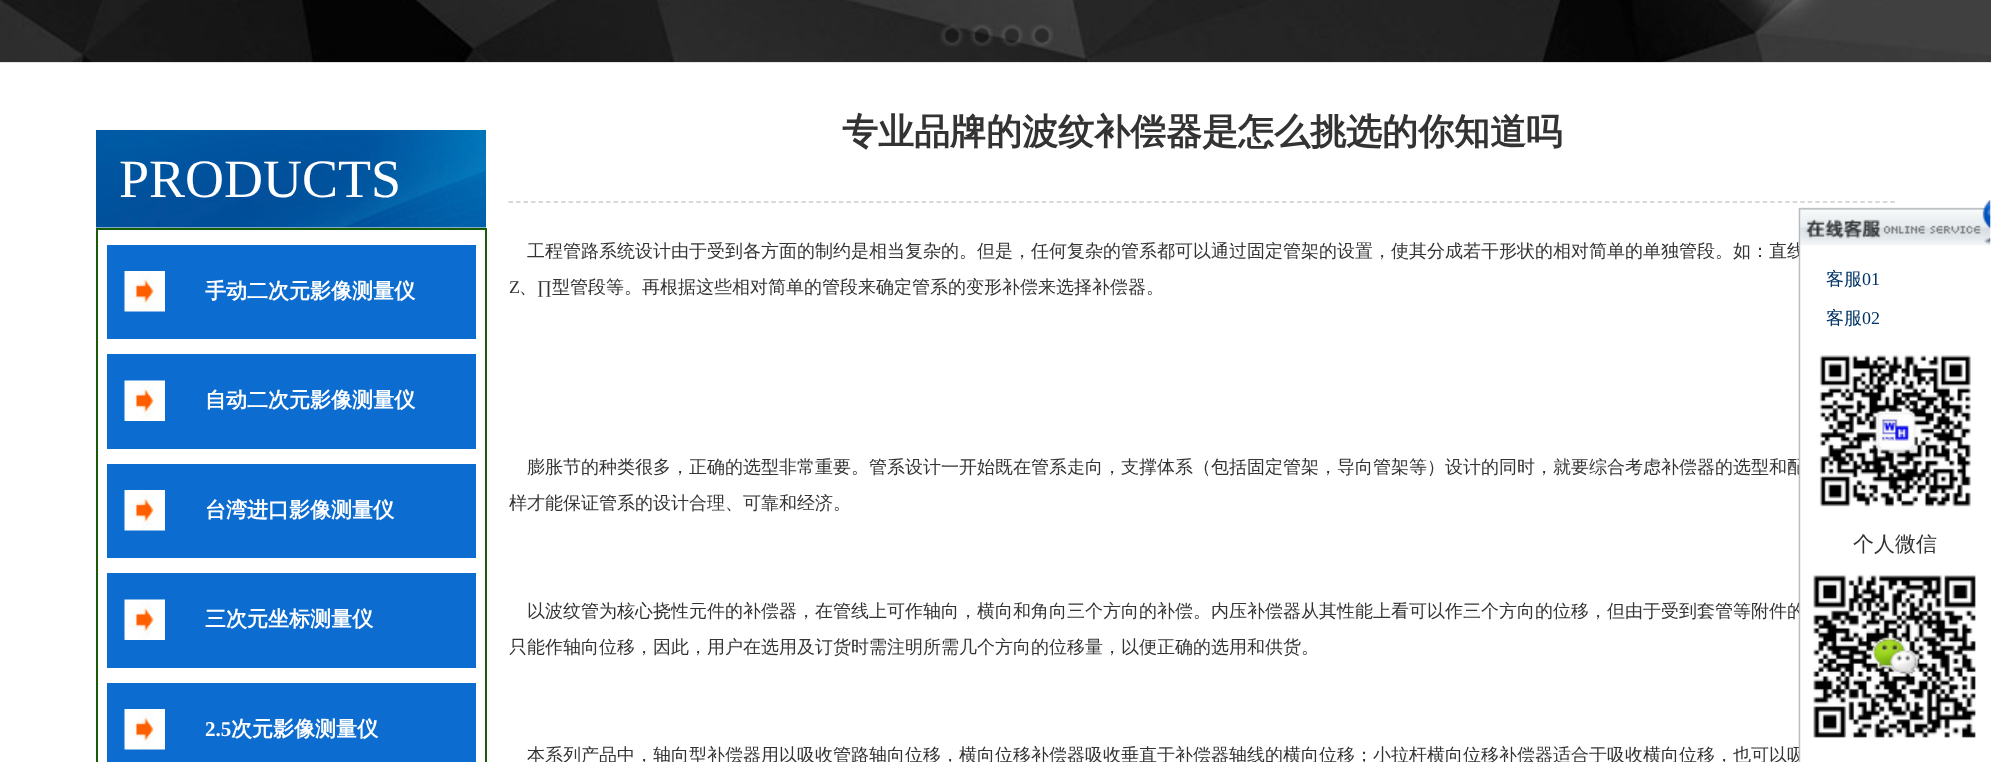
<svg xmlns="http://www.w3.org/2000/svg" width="1991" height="762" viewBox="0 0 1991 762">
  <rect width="100%" height="100%" fill="#fff"/>
  <image x="0" y="0" width="1991" height="63" href="img/1.png"/>
  <image x="940" y="24" width="23" height="23" href="img/2.png"/>
  <image x="970" y="24" width="23" height="23" href="img/3.png"/>
  <image x="1000" y="24" width="23" height="23" href="img/4.png"/>
  <image x="1030" y="24" width="23" height="23" href="img/5.png"/>
  <image x="96" y="130" width="390" height="98" href="img/6.png"/>
  <path d="M96 228h390v2H96z" fill="#195c08"/>
  <path d="M485 228h2v534H485z" fill="#195c08"/>
  <path d="M96 228h2v534H96z" fill="#195c08"/>
  <path d="M107 245h369v94H107z" fill="#0c6ccf"/>
  <image x="124" y="271" width="41" height="41" href="img/7.png"/>
  <path d="M107 354h369v95H107z" fill="#0c6ccf"/>
  <image x="124" y="380" width="41" height="41" href="img/8.png"/>
  <path d="M107 464h369v94H107z" fill="#0c6ccf"/>
  <image x="124" y="490" width="41" height="41" href="img/7.png"/>
  <path d="M107 573h369v95H107z" fill="#0c6ccf"/>
  <image x="124" y="599" width="41" height="41" href="img/8.png"/>
  <path d="M107 683h369v79H107z" fill="#0c6ccf"/>
  <image x="124" y="709" width="41" height="41" href="img/7.png"/>
  <path d="M508.5 202H1896" fill="none" stroke="#ccc" stroke-width="1.5" stroke-dasharray="4.5 3.01"/>
  <text x="119" y="197" font-family="Liberation Serif" font-size="54" fill="#fff">PRODUCTS</text>
  <g font-family="WenQuanYi Zen Hei" font-size="21" font-weight="bold" fill="#fff">
    <text x="205" y="298">手动二次元影像测量仪</text>
    <text x="205" y="407">自动二次元影像测量仪</text>
    <text x="205" y="517">台湾进口影像测量仪</text>
    <text x="205" y="626">三次元坐标测量仪</text>
  </g>
  <text x="205" y="736" font-family="Liberation Serif" font-size="21" font-weight="bold" fill="#fff">2.5</text>
  <text x="231" y="736" font-family="WenQuanYi Zen Hei" font-size="21" font-weight="bold" fill="#fff">次元影像测量仪</text>
  <text x="842" y="144" font-family="WenQuanYi Zen Hei" font-size="36" font-weight="bold" fill="#333">专业品牌的波纹补偿器是怎么挑选的你知道吗</text>
  <text x="527" y="257" font-family="WenQuanYi Zen Hei" font-size="18" font-weight="500" fill="#333">工程管路系统设计由于受到各方面的制约是相当复杂的。但是，任何复杂的管系都可以通过固定管架的设置，使其分成若干形状的相对简单的单独管段。如：直线</text>
  <text x="509" y="293" font-family="Liberation Serif" font-size="18" fill="#333">Z</text>
  <text x="519" y="293" font-family="WenQuanYi Zen Hei" font-size="18" font-weight="500" fill="#333">、</text>
  <text x="537" y="293" font-family="Liberation Serif" font-size="18" fill="#333">∏</text>
  <g font-family="WenQuanYi Zen Hei" font-size="18" font-weight="500" fill="#333">
    <text x="552" y="293">型管段等。再根据这些相对简单的管段来确定管系的变形补偿来选择补偿器。</text>
    <text x="527" y="473">膨胀节的种类很多，正确的选型非常重要。管系设计一开始既在管系走向，支撑体系（包括固定管架，导向管架等）设计的同时，就要综合考虑补偿器的选型和配</text>
    <text x="509" y="509">样才能保证管系的设计合理、可靠和经济。</text>
    <text x="527" y="617">以波纹管为核心挠性元件的补偿器，在管线上可作轴向，横向和角向三个方向的补偿。内压补偿器从其性能上看可以作三个方向的位移，但由于受到套管等附件的</text>
    <text x="509" y="653">只能作轴向位移，因此，用户在选用及订货时需注明所需几个方向的位移量，以便正确的选用和供货。</text>
    <text x="527" y="761">本系列产品中，轴向型补偿器用以吸收管路轴向位移，横向位移补偿器吸收垂直于补偿器轴线的横向位移；小拉杆横向位移补偿器适合于吸收横向位移，也可以吸</text>
  </g>
  <image x="1798" y="199" width="193" height="47" href="img/9.png"/>
  <image x="1798" y="245" width="192" height="517" href="img/10.png"/>
  <text x="1826" y="285" font-family="WenQuanYi Zen Hei" font-size="18" font-weight="500" fill="#036">客服</text>
  <text x="1862" y="285" font-family="Liberation Serif" font-size="18" fill="#036">01</text>
  <text x="1826" y="324" font-family="WenQuanYi Zen Hei" font-size="18" font-weight="500" fill="#036">客服</text>
  <text x="1862" y="324" font-family="Liberation Serif" font-size="18" fill="#036">02</text>
  <image x="1819" y="355" width="152" height="152" href="img/11.png"/>
  <text x="1853" y="551" font-family="WenQuanYi Zen Hei" font-size="21" font-weight="500" fill="#333">个人微信</text>
  <image x="1813" y="574" width="163" height="164" href="img/12.png"/>
</svg>
